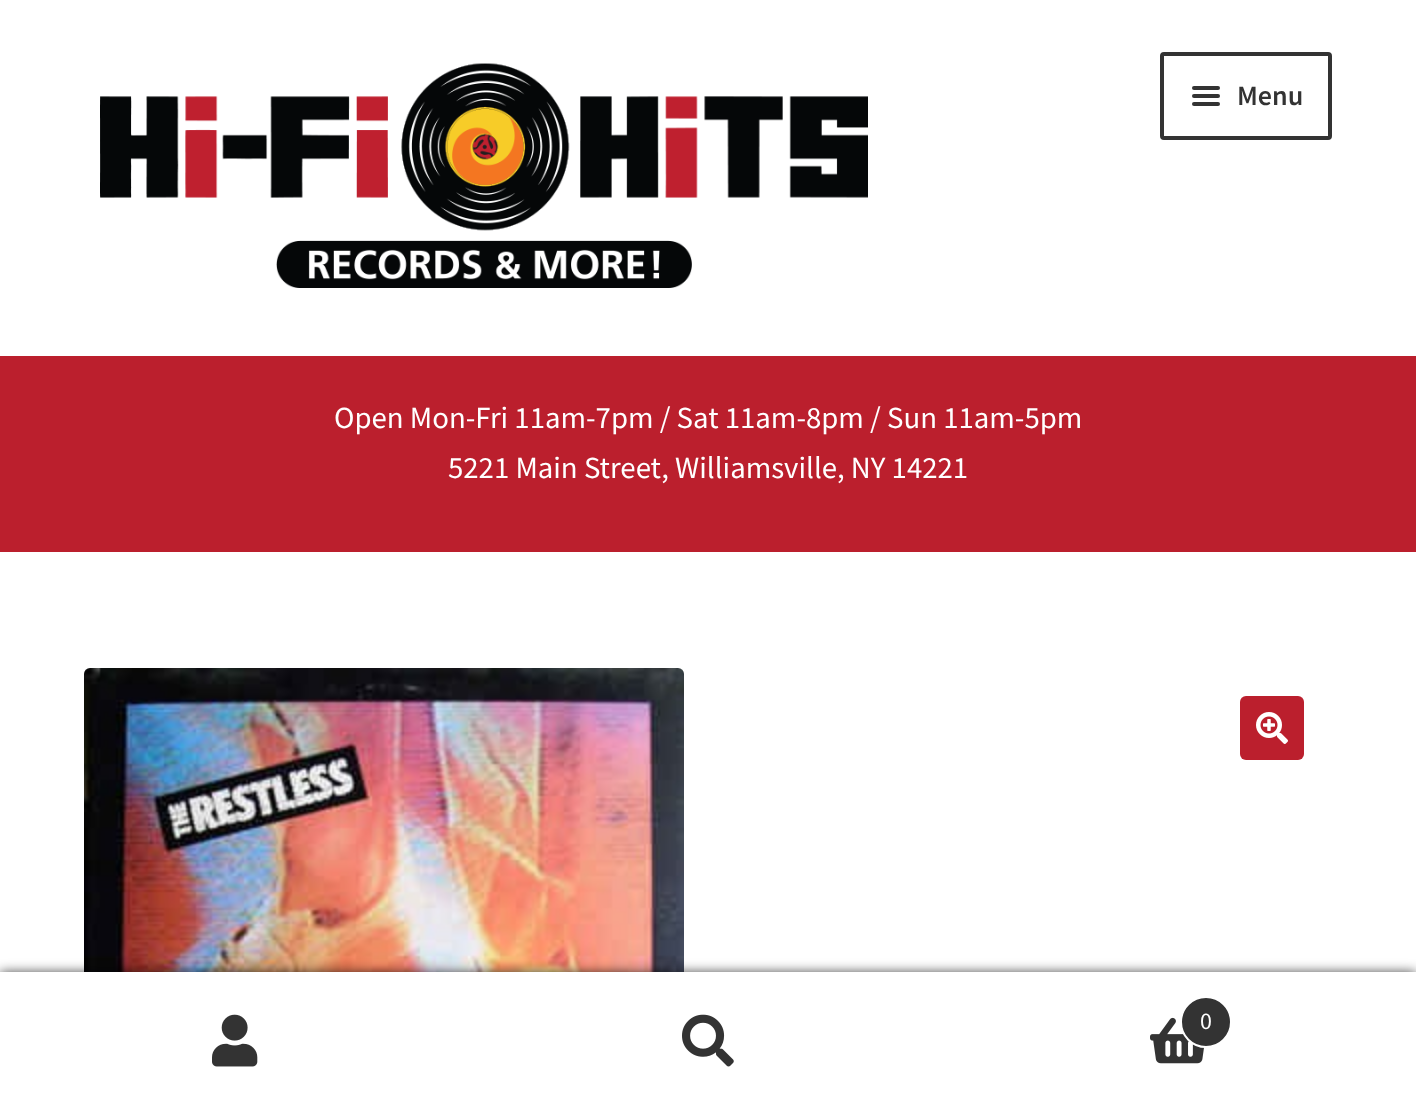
<svg xmlns="http://www.w3.org/2000/svg" width="1416" height="1110" viewBox="0 0 1416 1110">
  <rect width="100%" height="100%" fill="#fff"/>
  <image x="100" y="63" width="768" height="225" href="img/1.png"/>
  <rect x="1162" y="54" width="168" height="84" rx="2" fill="none" stroke="#333" stroke-width="4"/>
  <rect x="1192" y="86" width="28" height="4" rx="2" fill="#333"/>
  <rect x="1192" y="94" width="28" height="4" rx="2" fill="#333"/>
  <rect x="1192" y="102" width="28" height="4" rx="2" fill="#333"/>
  <path d="M0 356h1416v196H0z" fill="#bb1f2d"/>
  <image x="84" y="668" width="600" height="304" href="img/2.png"/>
  <rect x="1240" y="696" width="64" height="64" rx="6" fill="#bb1f2d"/>
  <image x="1256" y="712" width="32" height="32" href="img/3.png"/>
  <path d="M0 972h1416v138H0z" fill="#000000b3" filter="blur(6px)"/>
  <path d="M0 972h1416v2H0z" fill="#fff"/>
  <path d="M0 974h1416v136H0z" fill="#fff"/>
  <image x="212" y="1014" width="46" height="53" href="img/4.png"/>
  <image x="682" y="1014" width="52" height="53" href="img/5.png"/>
  <image x="1150" y="1017" width="55" height="47" href="img/6.png"/>
  <circle cx="1206" cy="1022" r="25" fill="#333" stroke="#fff" stroke-width="2"/>
  <text x="1237" y="105" font-family="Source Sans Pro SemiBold" font-size="28" font-weight="600" fill="#333">Menu</text>
  <g font-family="Source Sans Pro" font-size="30.8" fill="#fff">
    <text x="334" y="428">Open Mon-Fri 11am-7pm / Sat 11am-8pm / Sun 11am-5pm</text>
    <text x="448" y="478">5221 Main Street, Williamsville, NY 14221</text>
  </g>
  <text x="1200" y="1029" font-family="Source Sans Pro" font-size="24" fill="#fff">0</text>
</svg>
